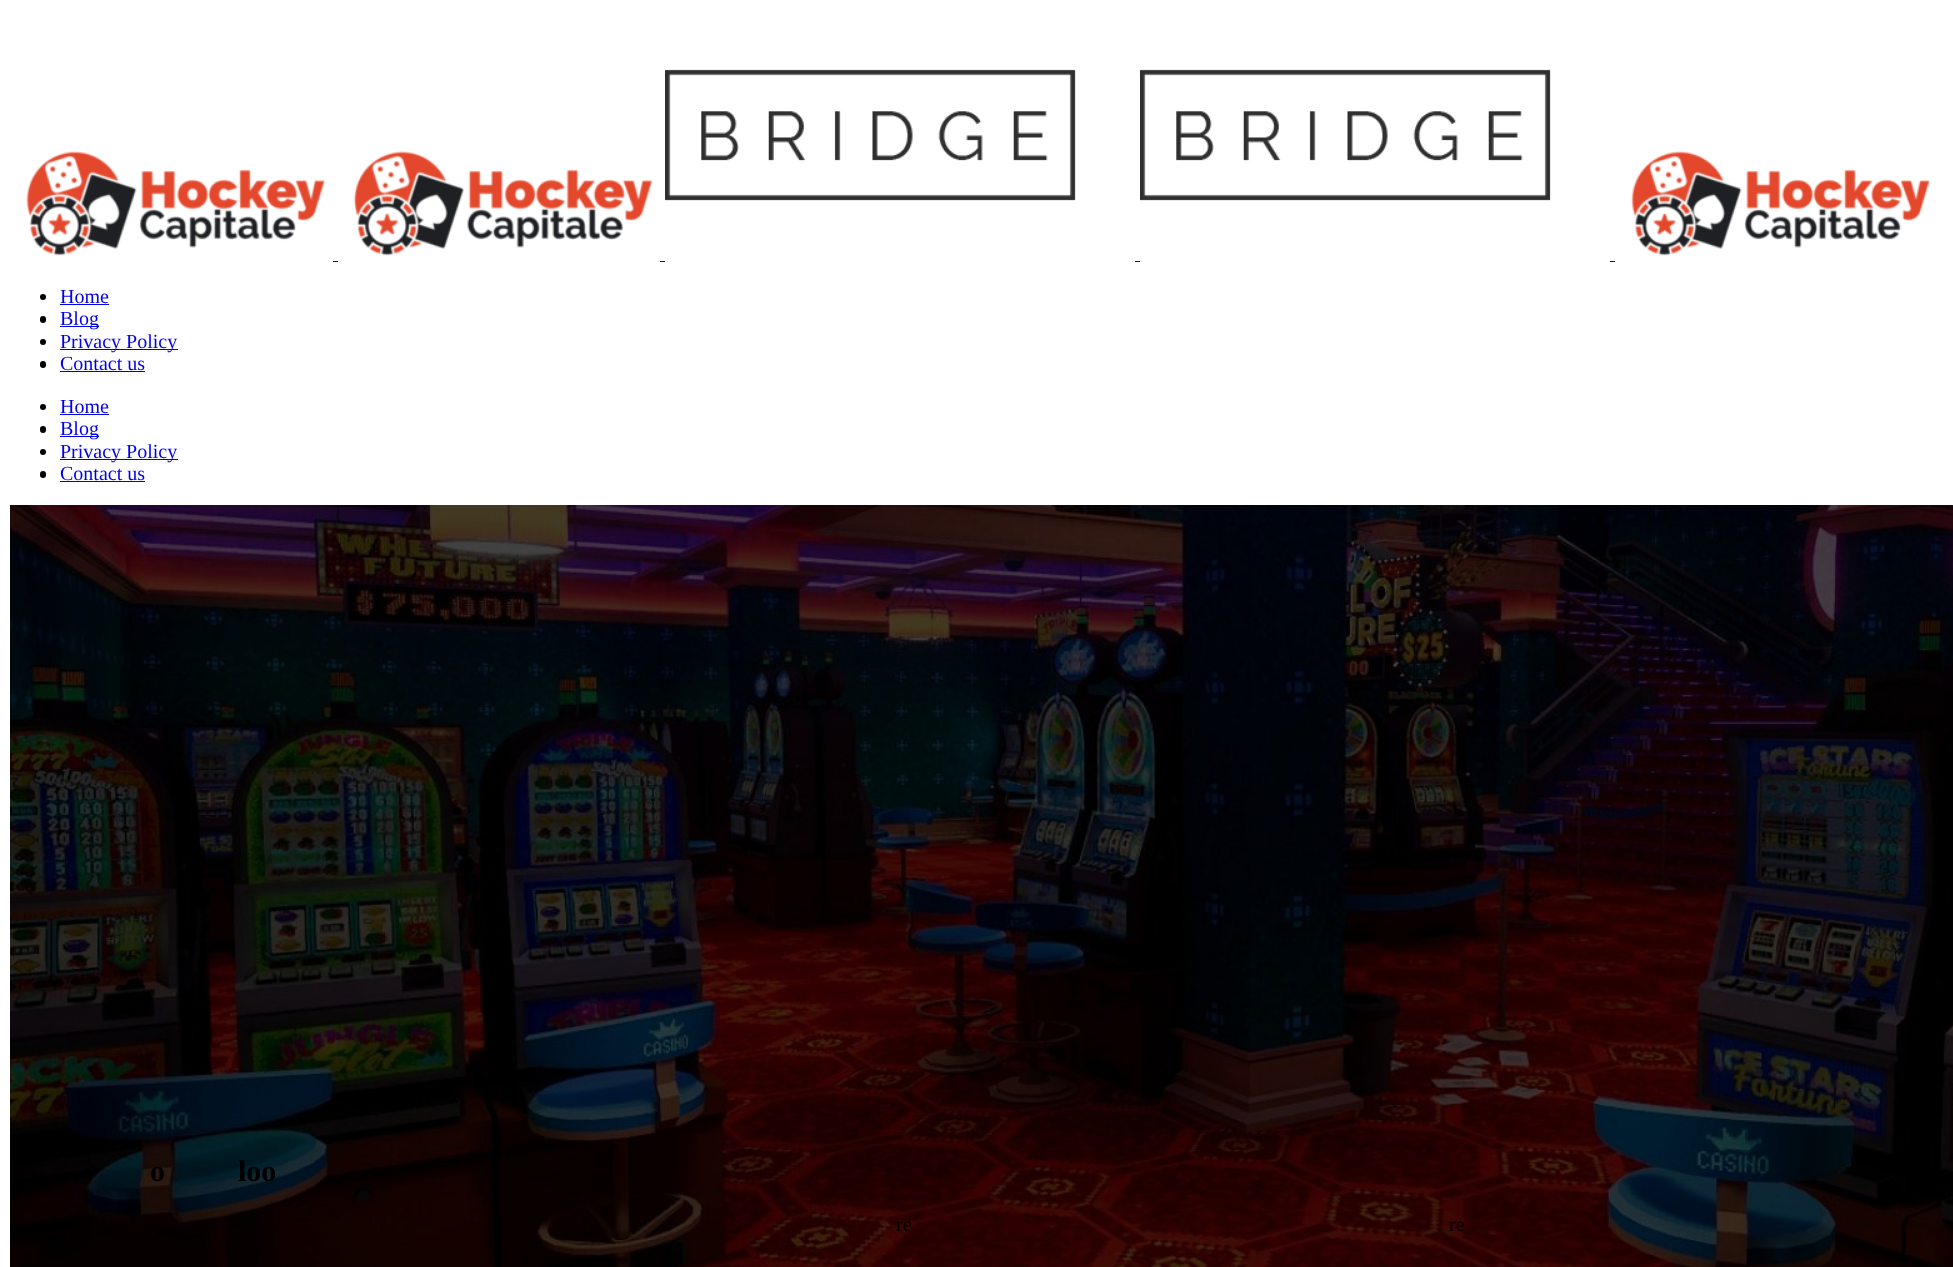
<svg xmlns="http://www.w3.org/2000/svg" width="1953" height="1267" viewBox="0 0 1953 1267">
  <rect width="100%" height="100%" fill="#fff"/>
  <image x="26" y="151" width="300" height="105" href="img/1.png"/>
  <image x="353" y="151" width="300" height="105" href="img/2.png"/>
  <image x="665" y="69" width="411" height="132" href="img/3.png"/>
  <image x="1140" y="69" width="411" height="132" href="img/4.png"/>
  <image x="1631" y="151" width="300" height="105" href="img/5.png"/>
  <path d="M333 261h5v1H333z" fill="#00e"/>
  <path d="M660 261h5v1H660z" fill="#00e"/>
  <path d="M1135 261h5v1H1135z" fill="#00e"/>
  <path d="M1610 261h5v1H1610z" fill="#00e"/>
  <circle cx="43" cy="297" r="3" fill="#000"/>
  <path d="M60 304h49v1H60z" fill="#00e"/>
  <rect x="40" y="316" width="6" height="7" rx="3" fill="#000"/>
  <path d="M60 326h39v1H60z" fill="#00e"/>
  <circle cx="43" cy="342" r="3" fill="#000"/>
  <path d="M60 349h118v1H60z" fill="#00e"/>
  <rect x="40" y="361" width="6" height="7" rx="3" fill="#000"/>
  <path d="M60 371h85v1H60z" fill="#00e"/>
  <circle cx="43" cy="407" r="3" fill="#000"/>
  <path d="M60 414h49v1H60z" fill="#00e"/>
  <rect x="40" y="426" width="6" height="7" rx="3" fill="#000"/>
  <path d="M60 436h39v1H60z" fill="#00e"/>
  <circle cx="43" cy="452" r="3" fill="#000"/>
  <path d="M60 459h118v1H60z" fill="#00e"/>
  <rect x="40" y="471" width="6" height="7" rx="3" fill="#000"/>
  <path d="M60 481h85v1H60z" fill="#00e"/>
  <image x="10" y="505" width="1943" height="762" href="img/6.png"/>
  <g font-family="Liberation Serif" font-size="20" fill="#00e">
    <text x="60" y="303">Home</text>
    <text x="60" y="325">Blog</text>
    <text x="60" y="348">Privacy Policy</text>
    <text x="60" y="370">Contact us</text>
    <text x="60" y="413">Home</text>
    <text x="60" y="435">Blog</text>
    <text x="60" y="458">Privacy Policy</text>
    <text x="60" y="480">Contact us</text>
  </g>
  <g font-family="Liberation Serif" font-size="30" font-weight="bold" fill="#000">
    <text x="150" y="1181">o</text>
    <text x="238" y="1181">loo</text>
  </g>
  <g font-family="Liberation Serif" font-size="20" fill="#000">
    <text x="896" y="1231">re</text>
    <text x="1449" y="1231">re</text>
  </g>
</svg>
